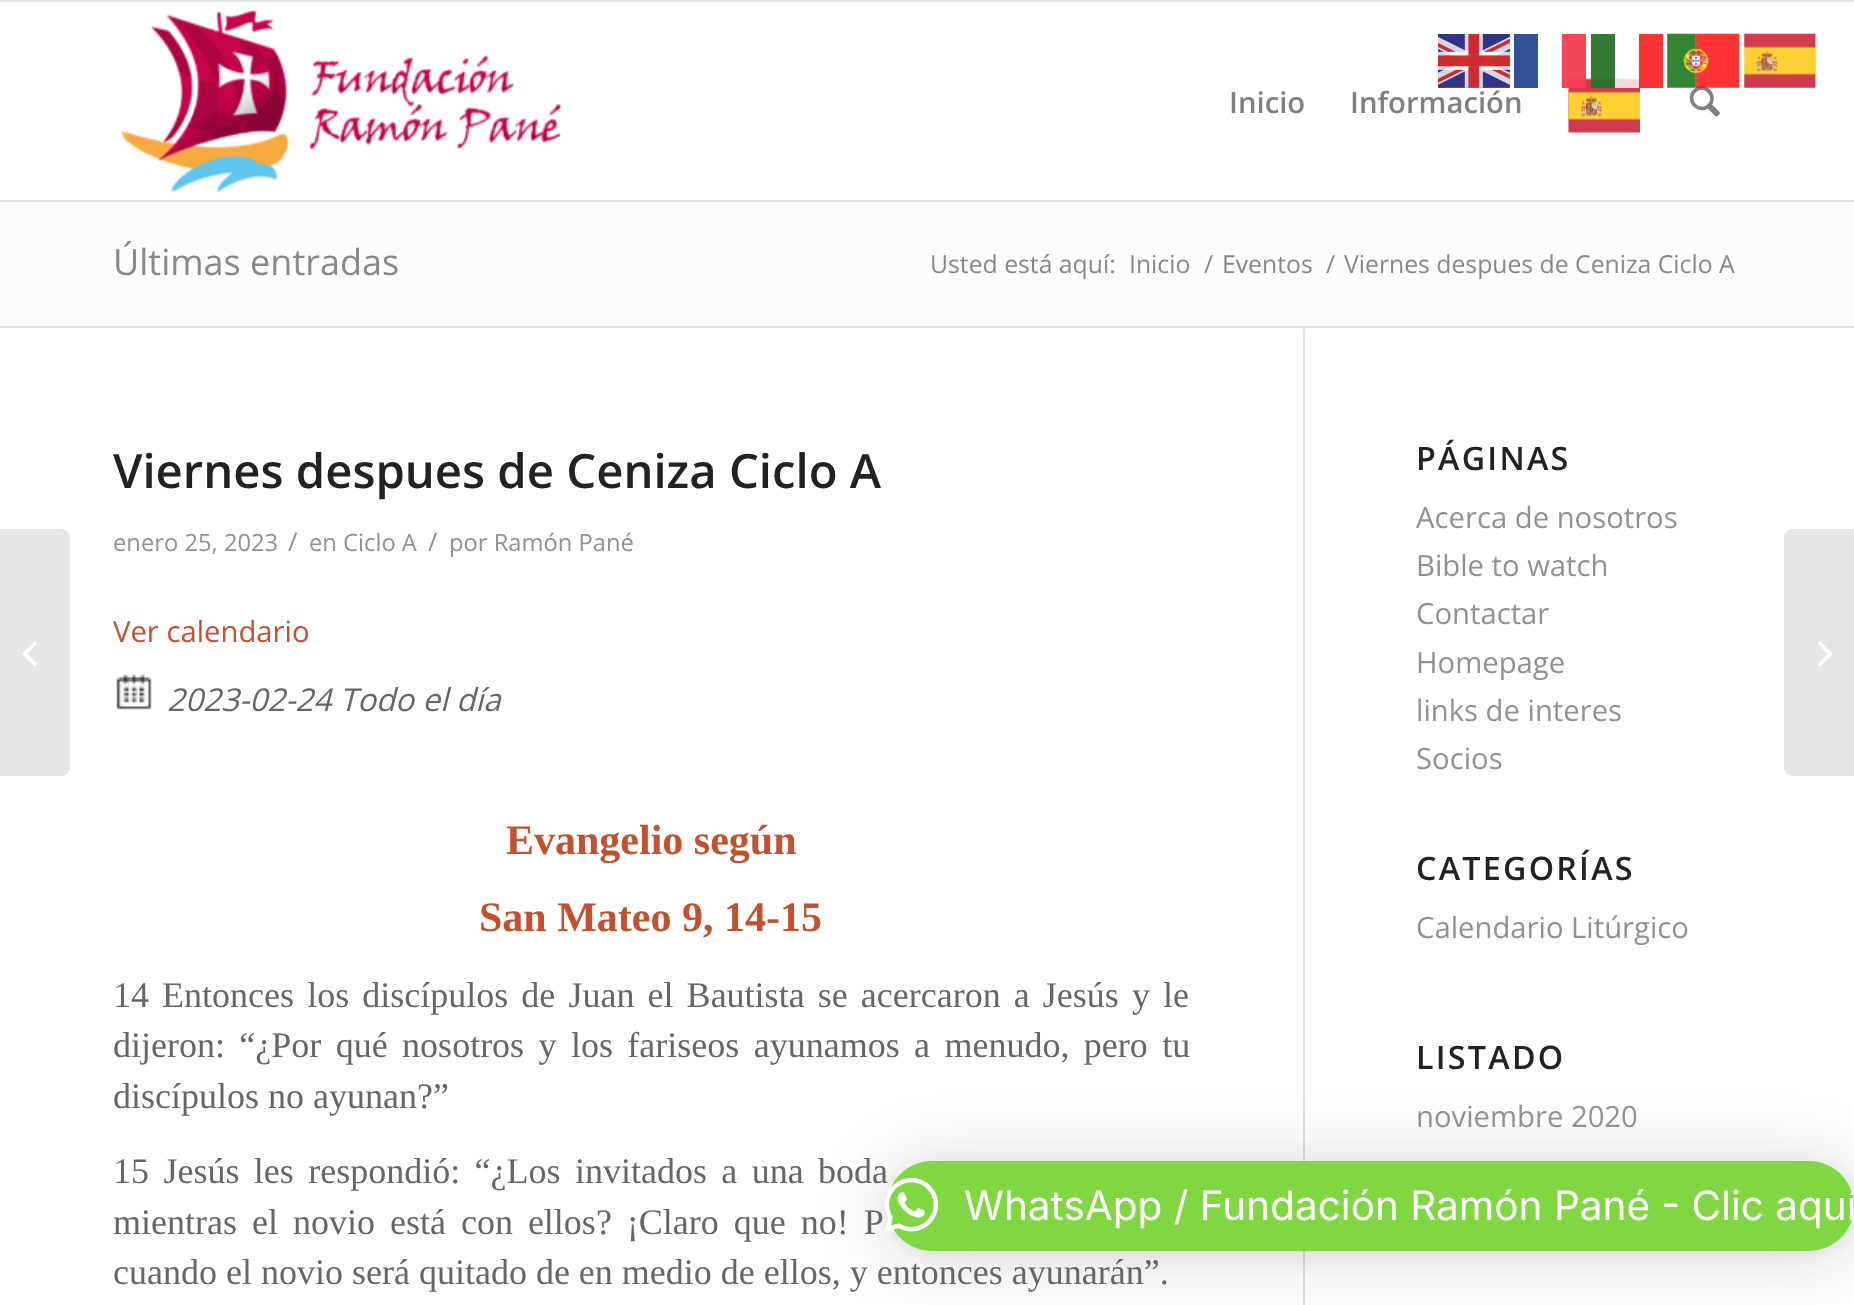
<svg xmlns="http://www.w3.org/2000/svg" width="1854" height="1305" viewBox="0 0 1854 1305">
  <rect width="100%" height="100%" fill="#fff"/>
  <image x="1438" y="34" width="72" height="54" href="img/1.png"/>
  <path d="M1514 34h24v54H1514z" fill="#335199"/>
  <image x="1568" y="78" width="72" height="55" href="img/5.png"/>
  <path d="M1568 78h18v10H1568z" fill="#ffffffcc"/>
  <path d="M1562 34h24v54H1562z" fill="#f31830cc"/>
  <path d="M1591 78h49v10H1591z" fill="#ffffffcc"/>
  <path d="M1591 34h24v54H1591z" fill="#005700cc"/>
  <path d="M1639 34h24v54H1639z" fill="#fc0000cc"/>
  <image x="1689" y="86" width="31" height="31" href="img/6.png"/>
  <image x="1667" y="33" width="73" height="55" href="img/2.png"/>
  <image x="1744" y="33" width="73" height="55" href="img/3.png"/>
  <path d="M0 0h1854v2H0z" fill="#e1e1e1"/>
  <path d="M0 200h1854v2H0z" fill="#e1e1e1"/>
  <image x="120" y="9" width="442" height="184" href="img/4.png"/>
  <path d="M0 529H61C66 529 70 533 70 538V767C70 772 66 776 61 776H0Z" fill="#e6e6e6"/>
  <image x="22" y="641" width="15" height="26" href="img/7.png"/>
  <path d="M0 203h1854v123H0z" fill="#fcfcfc"/>
  <path d="M0 326h1854v2H0z" fill="#e1e1e1"/>
  <path d="M1303 329h2v976H1303z" fill="#e1e1e1"/>
  <image x="116" y="674" width="36" height="36" href="img/8.png"/>
  <path d="M1793 529H1854V776H1793C1788 776 1784 772 1784 767V538C1784 533 1788 529 1793 529Z" fill="#e6e6e6"/>
  <image x="1818" y="641" width="15" height="26" href="img/9.png"/>
  <rect x="887" y="1166" width="967" height="90" rx="45" fill="#00000029" filter="blur(36px)"/>
  <rect x="887" y="1163" width="967" height="90" rx="45" fill="#0000000f" filter="blur(7px)"/>
  <g font-family="Open Sans" font-size="29.25" font-weight="600" fill="#808080">
    <text x="1229" y="113">Inicio</text>
    <text x="1350" y="113">Información</text>
  </g>
  <text x="113" y="275" font-family="Open Sans" font-size="36" fill="#888">Últimas entradas</text>
  <g font-family="Open Sans" font-size="24.75" fill="#888">
    <text x="930" y="273">Usted está aquí:</text>
    <text x="1129" y="273">Inicio</text>
    <text x="1204" y="273">/</text>
    <text x="1222" y="273">Eventos</text>
    <text x="1326" y="273">/</text>
    <text x="1344" y="273">Viernes despues de Ceniza Ciclo A</text>
  </g>
  <text x="113" y="488" font-family="Open Sans" font-size="47.25" font-weight="600" fill="#222">Viernes despues de Ceniza Ciclo A</text>
  <text x="113" y="551" font-family="Open Sans" font-size="23.75" fill="#919191">enero 25, 2023</text>
  <text x="288" y="551" font-family="Open Sans" font-size="26" fill="#919191">/</text>
  <text x="309" y="551" font-family="Open Sans" font-size="23.75" fill="#919191">en Ciclo A</text>
  <text x="428" y="551" font-family="Open Sans" font-size="26" fill="#919191">/</text>
  <text x="449" y="551" font-family="Open Sans" font-size="23.75" fill="#919191">por Ramón Pané</text>
  <text x="113" y="642" font-family="Open Sans" font-size="29.25" fill="#c3512f">Ver calendario</text>
  <text x="167" y="711" font-family="Open Sans" font-size="31.5" font-style="italic" fill="#666">2023-02-24 Todo el día</text>
  <g font-family="Liberation Serif" font-size="42" font-weight="bold" fill="#c3512f">
    <text x="506" y="854">Evangelio según</text>
    <text x="479" y="931">San Mateo 9, 14-15</text>
  </g>
  <g font-family="Liberation Serif" font-size="36" fill="#666">
    <text x="113" y="1007" word-spacing="4.1">14 Entonces los discípulos de Juan el Bautista se acercaron a Jesús y le</text>
    <text x="113" y="1057" word-spacing="5.4">dijeron: “¿Por qué nosotros y los fariseos ayunamos a menudo, pero tu</text>
    <text x="113" y="1108">discípulos no ayunan?”</text>
    <text x="113" y="1183" word-spacing="5.4">15 Jesús les respondió: “¿Los invitados a una boda</text>
    <text x="113" y="1234" word-spacing="6">mientras el novio está con ellos? ¡Claro que no! P</text>
    <text x="113" y="1284">cuando el novio será quitado de en medio de ellos, y entonces ayunarán”.</text>
  </g>
  <text x="1416" y="470" font-family="Open Sans" font-size="32.25" font-weight="600" letter-spacing="2.25" fill="#222">PÁGINAS</text>
  <g font-family="Open Sans" font-size="29.25" fill="#919191">
    <text x="1416" y="528">Acerca de nosotros</text>
    <text x="1416" y="576">Bible to watch</text>
    <text x="1416" y="624">Contactar</text>
    <text x="1416" y="673">Homepage</text>
    <text x="1416" y="721">links de interes</text>
    <text x="1416" y="769">Socios</text>
  </g>
  <text x="1416" y="880" font-family="Open Sans" font-size="32.25" font-weight="600" letter-spacing="2.25" fill="#222">CATEGORÍAS</text>
  <text x="1416" y="938" font-family="Open Sans" font-size="29.25" fill="#919191">Calendario Litúrgico</text>
  <text x="1416" y="1069" font-family="Open Sans" font-size="32.25" font-weight="600" letter-spacing="2.25" fill="#222">LISTADO</text>
  <text x="1416" y="1127" font-family="Open Sans" font-size="29.25" fill="#919191">noviembre 2020</text>
  <rect x="887" y="1161" width="967" height="90" rx="45" fill="#81d742"/>
  <image x="884" y="1177" width="55" height="55" href="img/10.png"/>
  <text x="964" y="1220" font-family="Inter" font-size="40.5" fill="#fff">WhatsApp / Fundación Ramón Pané - Clic aquí</text>
</svg>
